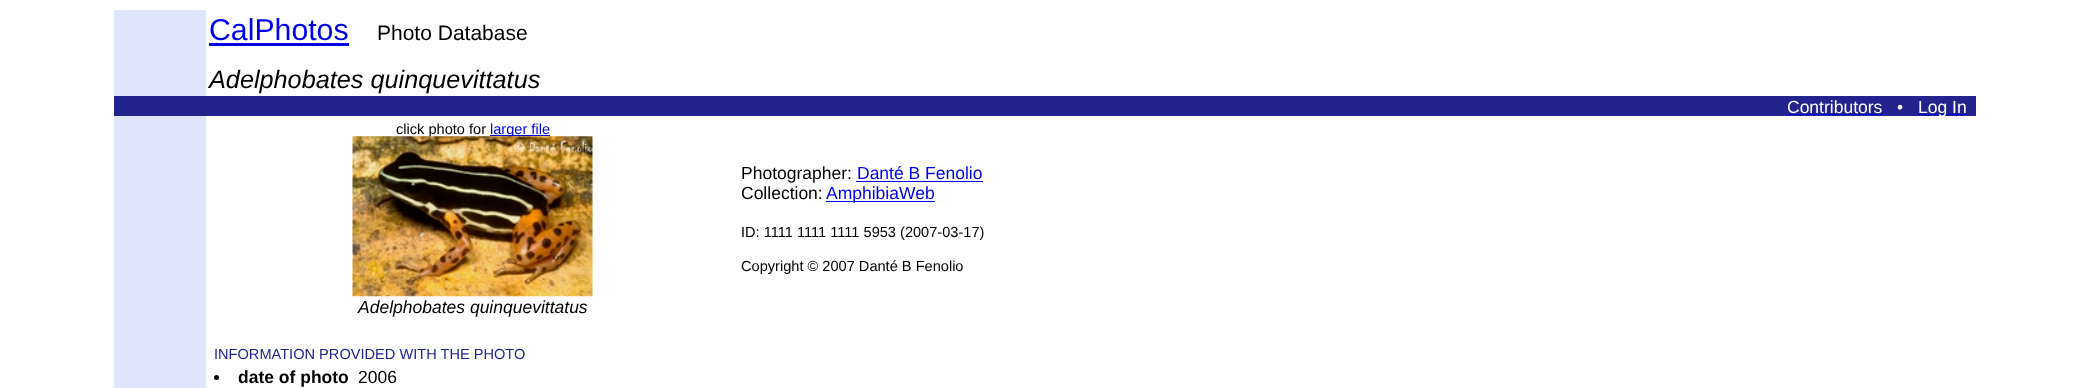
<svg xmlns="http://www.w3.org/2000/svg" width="2089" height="388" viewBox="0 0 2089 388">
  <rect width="100%" height="100%" fill="#fff"/>
  <path d="M114 10h92v86H114z" fill="#dfe5fa"/>
  <path d="M209 43h140v3H209z" fill="#00e"/>
  <path d="M114 96h1862v20H114z" fill="#23238e"/>
  <path d="M1788 114h95v1H1788z" fill="#00e"/>
  <path d="M1918 114h48v1H1918z" fill="#00e"/>
  <path d="M114 116h92v272H114z" fill="#dfe5fa"/>
  <path d="M490 135h60v1H490z" fill="#00e"/>
  <path d="M856 181h127v1H856z" fill="#00e"/>
  <path d="M826 201h109v1H826z" fill="#00e"/>
  <circle cx="216.5" cy="377.5" r="2.5" fill="#000"/>
  <text x="209" y="40" font-family="Liberation Sans" font-size="30.25" fill="#00e">CalPhotos</text>
  <text x="377" y="40" font-family="Liberation Sans" font-size="21" fill="#000">Photo Database</text>
  <text x="209" y="88" font-family="Liberation Sans" font-size="25.25" font-style="italic" fill="#000">Adelphobates quinquevittatus</text>
  <g font-family="Liberation Sans" font-size="17.5" fill="#fff">
    <text x="1787" y="113">Contributors</text>
    <text x="1897" y="113">•</text>
    <text x="1918" y="113">Log In</text>
  </g>
  <text x="396" y="134" font-family="Liberation Sans" font-size="14.6" fill="#000">click photo for</text>
  <text x="490" y="134" font-family="Liberation Sans" font-size="14.6" fill="#00e">larger file</text>
  <image x="352" y="136" width="241" height="161" href="img/1.png"/>
  <text x="358" y="313" font-family="Liberation Sans" font-size="17.5" font-style="italic" fill="#000">Adelphobates quinquevittatus</text>
  <text x="741" y="179" font-family="Liberation Sans" font-size="17.5" fill="#000">Photographer:</text>
  <text x="857" y="179" font-family="Liberation Sans" font-size="17.5" fill="#00e">Danté B Fenolio</text>
  <text x="741" y="199" font-family="Liberation Sans" font-size="17.5" fill="#000">Collection:</text>
  <text x="826" y="199" font-family="Liberation Sans" font-size="17.5" fill="#00e">AmphibiaWeb</text>
  <g font-family="Liberation Sans" font-size="14.6" fill="#000">
    <text x="741" y="237">ID: 1111 1111 1111 5953 (2007-03-17)</text>
    <text x="741" y="271">Copyright © 2007 Danté B Fenolio</text>
  </g>
  <text x="214" y="359" font-family="Liberation Sans" font-size="14.6" fill="#23238e">INFORMATION PROVIDED WITH THE PHOTO</text>
  <text x="238" y="383" font-family="Liberation Sans" font-size="17.5" font-weight="bold" fill="#000">date of photo</text>
  <text x="358" y="383" font-family="Liberation Sans" font-size="17.5" fill="#000">2006</text>
</svg>
